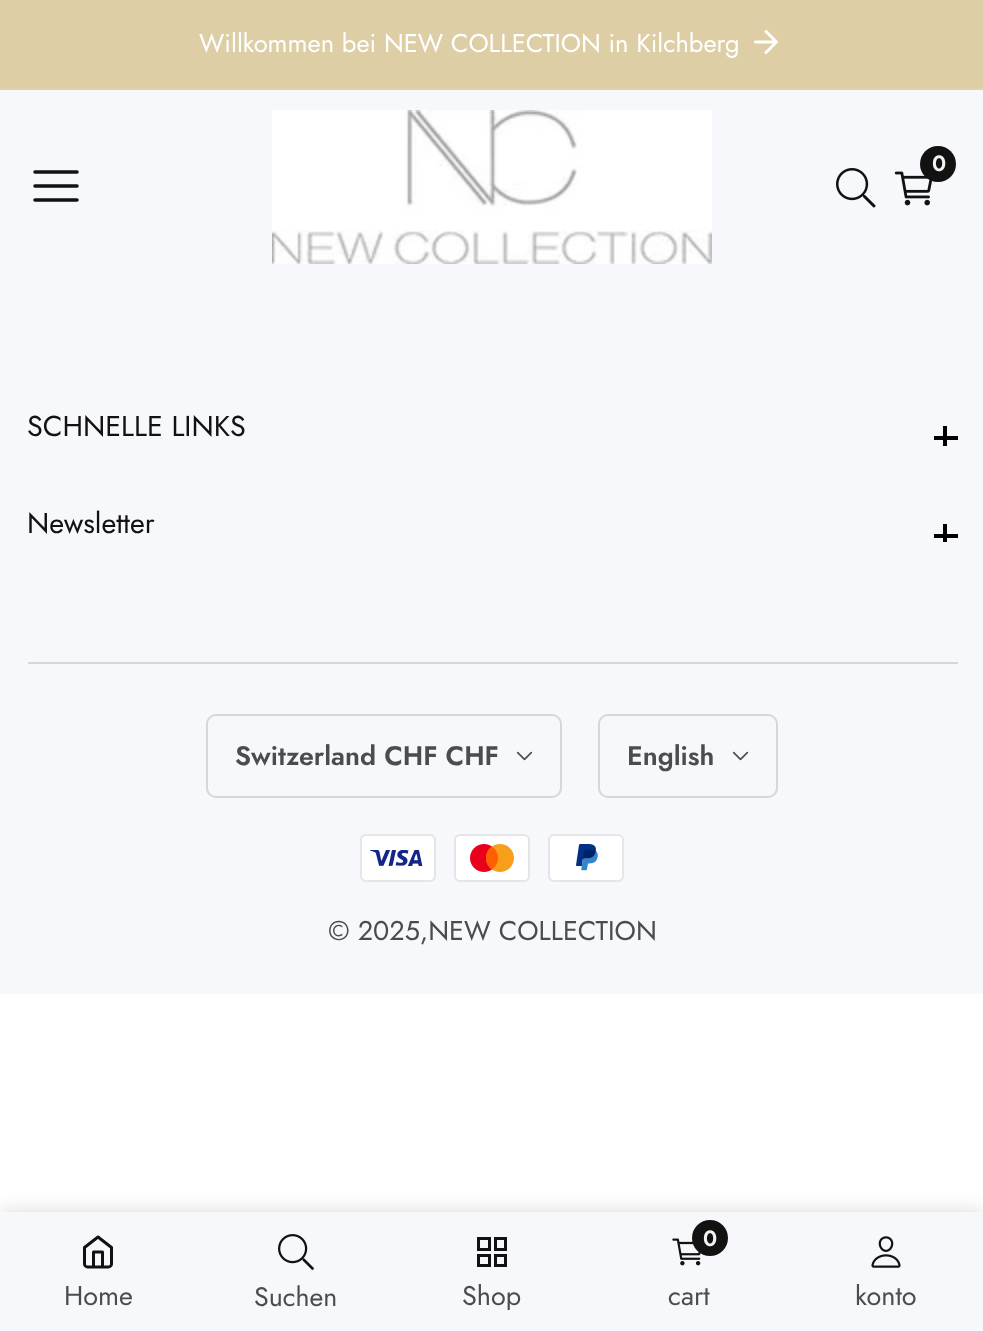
<svg xmlns="http://www.w3.org/2000/svg" width="983" height="1331" viewBox="0 0 983 1331">
  <defs>
    <clipPath id="clip1"><path d="M394 1284h196v26H394z"/></clipPath>
  </defs>
  <rect width="100%" height="100%" fill="#fff"/>
  <path d="M0 0h983v88H0z" fill="#ddcea5"/>
  <path d="M0 88h983v2H0z" fill="#e0d2ac"/>
  <path d="M755.5 42H776.5M766 31.5L776.5 42L766 52.5" fill="none" stroke="#fff" stroke-width="3" stroke-linecap="round" stroke-linejoin="round"/>
  <path d="M0 90h983v904H0z" fill="#f7f8fc"/>
  <image x="272" y="110" width="440" height="154" href="img/1.png"/>
  <image x="894" y="171" width="38" height="35" href="img/2.png"/>
  <circle cx="938" cy="164" r="18" fill="#121212"/>
  <image x="836" y="168" width="40" height="40" href="img/3.png"/>
  <path d="M35 186H77M35 172H77M35 200H77" fill="none" stroke="#121212" stroke-width="3.5" stroke-linecap="round" stroke-linejoin="round"/>
  <path d="M934 436h24v4H934z" fill="#000"/>
  <path d="M943 426h4v20H943z" fill="#000"/>
  <path d="M934 534h24v4H934z" fill="#000"/>
  <path d="M943 524h4v18H943z" fill="#000"/>
  <path d="M28 662h930v2H28z" fill="#d5d6d9"/>
  <rect x="207" y="715" width="354" height="82" rx="9" fill="none" stroke="#d5d6d9" stroke-width="2"/>
  <image x="516" y="751" width="16" height="10" href="img/4.png"/>
  <rect x="599" y="715" width="178" height="82" rx="9" fill="none" stroke="#d5d6d9" stroke-width="2"/>
  <image x="732" y="751" width="17" height="10" href="img/5.png"/>
  <image x="360" y="834" width="76" height="48" href="img/6.png"/>
  <image x="454" y="834" width="76" height="48" href="img/7.png"/>
  <image x="548" y="834" width="76" height="48" href="img/8.png"/>
  <path d="M0 1212h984v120H0z" fill="#00000026" filter="blur(10px)"/>
  <path d="M0 1212h983v119H0z" fill="#f7f8fc"/>
  <path d="M84.5 1247.5L98 1237L111.5 1247.5V1264C111.5 1265.5 110 1267 108.5 1267H87.5C86 1267 84.5 1265.5 84.5 1264ZM93.5 1267V1252H102.5V1267" fill="none" stroke="#121212" stroke-width="3" stroke-linecap="round" stroke-linejoin="round"/>
  <image x="278" y="1234" width="36" height="36" href="img/9.png"/>
  <path d="M478.5 1238.5h11v11H478.5z" fill="none" stroke="#121212" stroke-width="3"/>
  <path d="M495.5 1238.5h10v11H495.5z" fill="none" stroke="#121212" stroke-width="3"/>
  <path d="M478.5 1255.5h11v10H478.5z" fill="none" stroke="#121212" stroke-width="3"/>
  <path d="M495.5 1255.5h10v10H495.5z" fill="none" stroke="#121212" stroke-width="3"/>
  <image x="672" y="1238" width="29" height="28" href="img/10.png"/>
  <circle cx="710" cy="1238" r="18" fill="#121212"/>
  <image x="871" y="1236" width="30" height="32" href="img/11.png"/>
  <text x="199" y="52" font-family="Jost" font-size="25.6" fill="#fff">Willkommen bei NEW COLLECTION in Kilchberg</text>
  <text x="932" y="171" font-family="Jost" font-size="22" font-weight="600" fill="#f3f3f3">0</text>
  <g font-family="Jost" font-size="28.75" fill="#121212">
    <text x="27" y="436">SCHNELLE LINKS</text>
    <text x="27" y="533">Newsletter</text>
  </g>
  <g font-family="Jost" font-size="26.75" font-weight="600" fill="#4b4c4d">
    <text x="235" y="765">Switzerland CHF CHF</text>
    <text x="627" y="765">English</text>
  </g>
  <g font-family="Jost" font-size="27" fill="#4b4c4d">
    <text x="328" y="940">© 2025,NEW COLLECTION</text>
    <text x="64" y="1305">Home</text>
  </g>
  <text x="254" y="1306" font-family="Jost" font-size="26.75" fill="#4b4c4d">Suchen</text>
  <g clip-path="url(#clip1)">
    <text x="462" y="1305" font-family="Jost" font-size="27" fill="#4b4c4d">Shop</text>
  </g>
  <text x="703" y="1246" font-family="Jost" font-size="22" font-weight="600" fill="#f3f3f3">0</text>
  <g font-family="Jost" font-size="27" fill="#4b4c4d">
    <text x="668" y="1305">cart</text>
    <text x="855" y="1305">konto</text>
  </g>
</svg>
